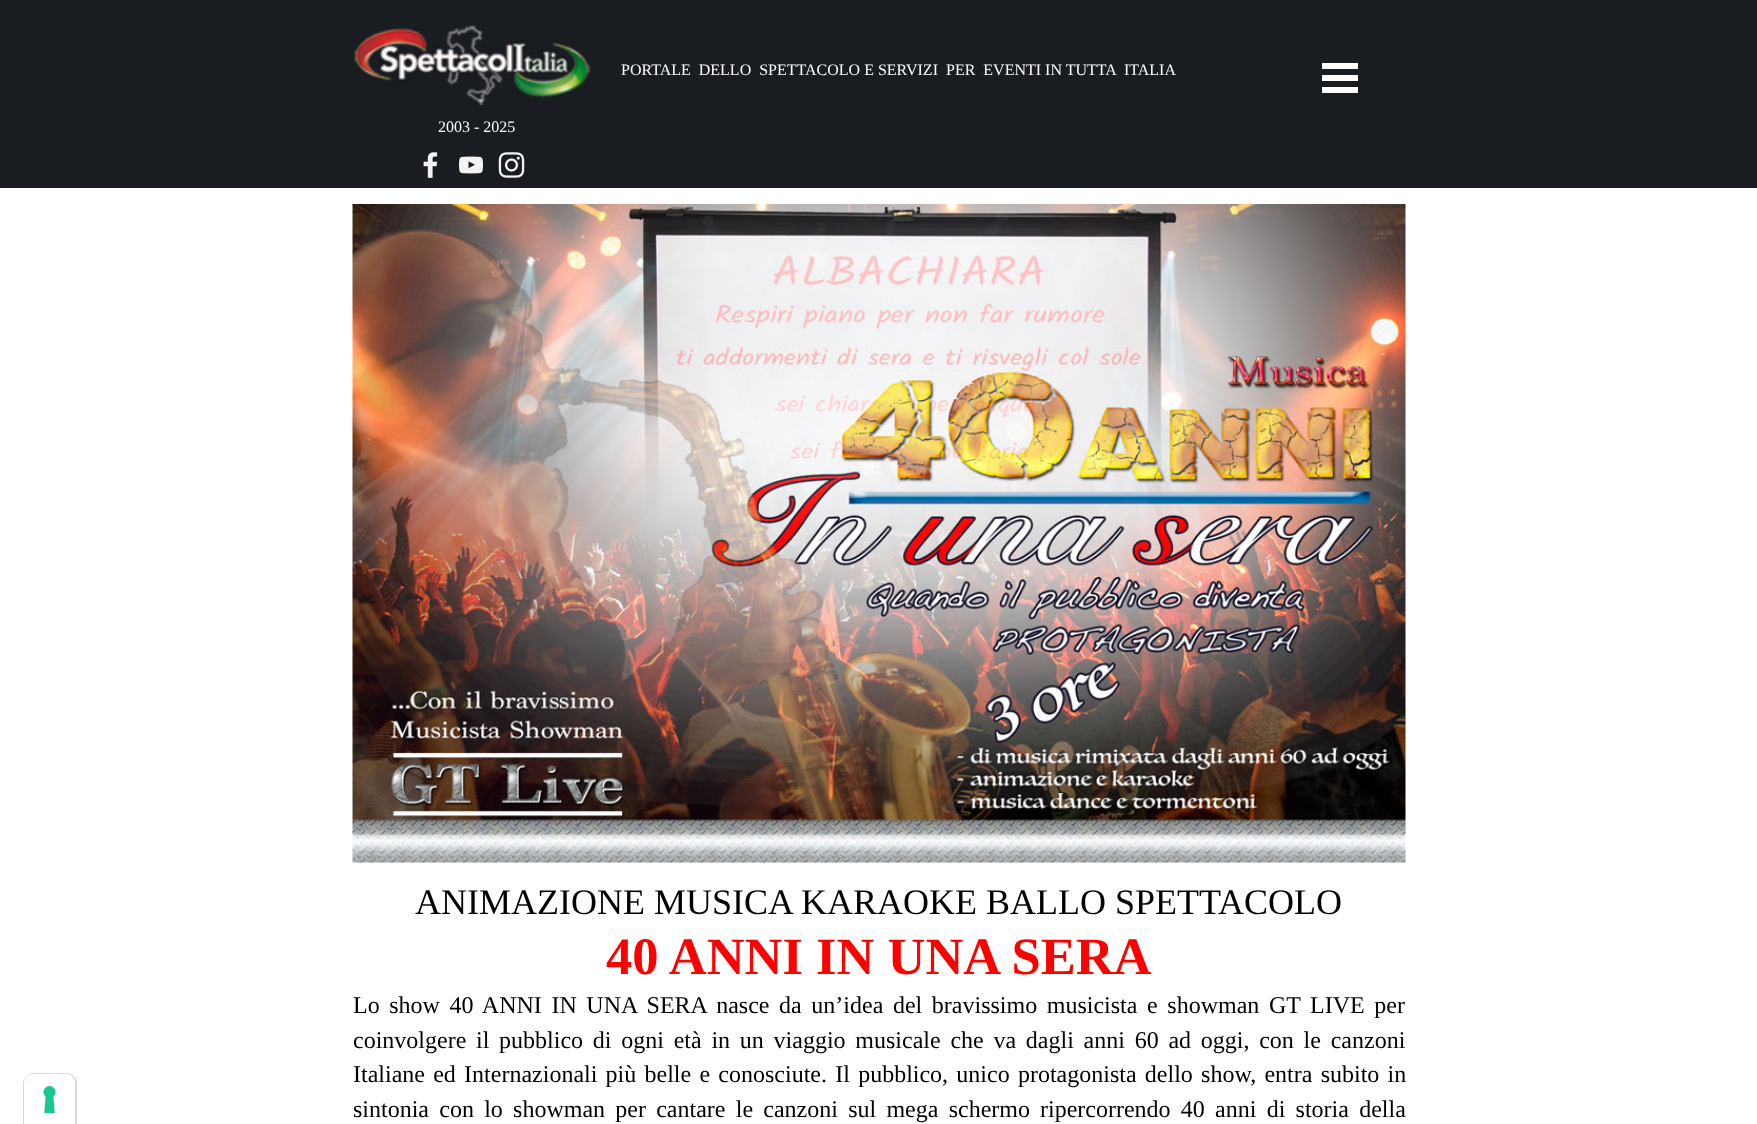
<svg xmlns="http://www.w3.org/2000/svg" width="1757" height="1124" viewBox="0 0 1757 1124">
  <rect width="100%" height="100%" fill="#fff"/>
  <path d="M34 1074H66C71.5 1074 76 1078.5 76 1084V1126H24V1084C24 1078.5 28.5 1074 34 1074Z" fill="none" stroke="#d9d9d9" stroke-width="2"/>
  <path d="M33 1074H66C71 1074 75 1078 75 1083V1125H24V1083C24 1078 28 1074 33 1074Z" fill="#fff"/>
  <image x="43" y="1086" width="13" height="27" href="img/1.png"/>
  <path d="M0 0h1757v188H0z" fill="#191c21"/>
  <image x="353" y="25" width="238" height="80" href="img/2.png"/>
  <path d="M1322 63h36v6H1322z" fill="#fff"/>
  <path d="M1322 75h36v6H1322z" fill="#fff"/>
  <path d="M1322 87h36v6H1322z" fill="#fff"/>
  <image x="423" y="152" width="15" height="26" href="img/3.png"/>
  <image x="459" y="156" width="24" height="18" href="img/4.png"/>
  <image x="498" y="152" width="27" height="26" href="img/5.png"/>
  <image x="352" y="204" width="1054" height="659" href="img/6.png"/>
  <g font-family="Liberation Serif" font-size="16" fill="#fff">
    <text x="621" y="75" xml:space="preserve">PORTALE  DELLO  SPETTACOLO E SERVIZI</text>
    <text x="946" y="75" xml:space="preserve">PER  EVENTI IN TUTTA  ITALIA</text>
    <text x="438" y="132">2003 - 2025</text>
  </g>
  <text x="415" y="914" font-family="Liberation Serif" font-size="36" fill="#000">ANIMAZIONE MUSICA KARAOKE BALLO SPETTACOLO</text>
  <text x="606" y="974" font-family="Liberation Serif" font-size="52.5" font-weight="bold" fill="#f00">40 ANNI IN UNA SERA</text>
  <g font-family="Liberation Serif" font-size="24" fill="#000">
    <text x="353" y="1013" word-spacing="3.6">Lo show 40 ANNI IN UNA SERA nasce da un’idea del bravissimo musicista e showman GT LIVE per</text>
    <text x="353" y="1048" word-spacing="3.75">coinvolgere il pubblico di ogni età in un viaggio musicale che va dagli anni 60 ad oggi, con le canzoni</text>
    <text x="353" y="1082" word-spacing="2.25">Italiane ed Internazionali più belle e conosciute. Il pubblico, unico protagonista dello show, entra subito in</text>
    <text x="353" y="1117" word-spacing="4.25">sintonia con lo showman per cantare le canzoni sul mega schermo</text>
    <text x="1040" y="1117" word-spacing="4.25">ripercorrendo 40 anni di storia della</text>
  </g>
</svg>
